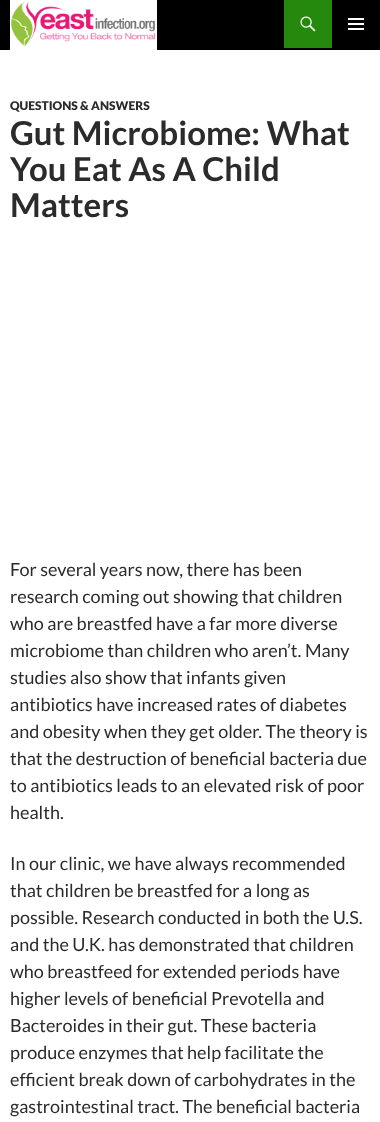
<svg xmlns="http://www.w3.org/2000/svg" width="380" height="1122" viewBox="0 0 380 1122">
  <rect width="100%" height="100%" fill="#fff"/>
  <path d="M0 0h380v50H0z" fill="#000"/>
  <image x="10" y="0" width="147" height="50" href="img/1.png"/>
  <path d="M284 0h48v48H284z" fill="#24890d"/>
  <image x="300" y="16" width="16" height="16" href="img/2.png"/>
  <image x="348" y="18" width="16" height="12" href="img/3.png"/>
  <text x="10" y="110" font-family="Lato" font-size="12" font-weight="900" fill="#2b2b2b">QUESTIONS &amp; ANSWERS</text>
  <g font-family="Lato" font-size="33" font-weight="bold" fill="#2b2b2b">
    <text x="10" y="145">Gut Microbiome: What</text>
    <text x="10" y="181">You Eat As A Child</text>
    <text x="10" y="217">Matters</text>
  </g>
  <g font-family="Lato" font-size="18" fill="#2b2b2b">
    <text x="10" y="576">For several years now, there has been</text>
    <text x="10" y="603">research coming out showing that children</text>
    <text x="10" y="630">who are breastfed have a far more diverse</text>
    <text x="10" y="657">microbiome than children who aren’t. Many</text>
    <text x="10" y="684">studies also show that infants given</text>
    <text x="10" y="711">antibiotics have increased rates of diabetes</text>
    <text x="10" y="738">and obesity when they get older. The theory is</text>
    <text x="10" y="765">that the destruction of beneficial bacteria due</text>
    <text x="10" y="792">to antibiotics leads to an elevated risk of poor</text>
    <text x="10" y="819">health.</text>
    <text x="10" y="870">In our clinic, we have always recommended</text>
    <text x="10" y="897">that children be breastfed for a long as</text>
    <text x="10" y="924">possible. Research conducted in both the U.S.</text>
    <text x="10" y="951">and the U.K. has demonstrated that children</text>
    <text x="10" y="978">who breastfeed for extended periods have</text>
    <text x="10" y="1005">higher levels of beneficial Prevotella and</text>
    <text x="10" y="1032">Bacteroides in their gut. These bacteria</text>
    <text x="10" y="1059">produce enzymes that help facilitate the</text>
    <text x="10" y="1086">efficient break down of carbohydrates in the</text>
    <text x="10" y="1113">gastrointestinal tract. The beneficial bacteria</text>
  </g>
</svg>
